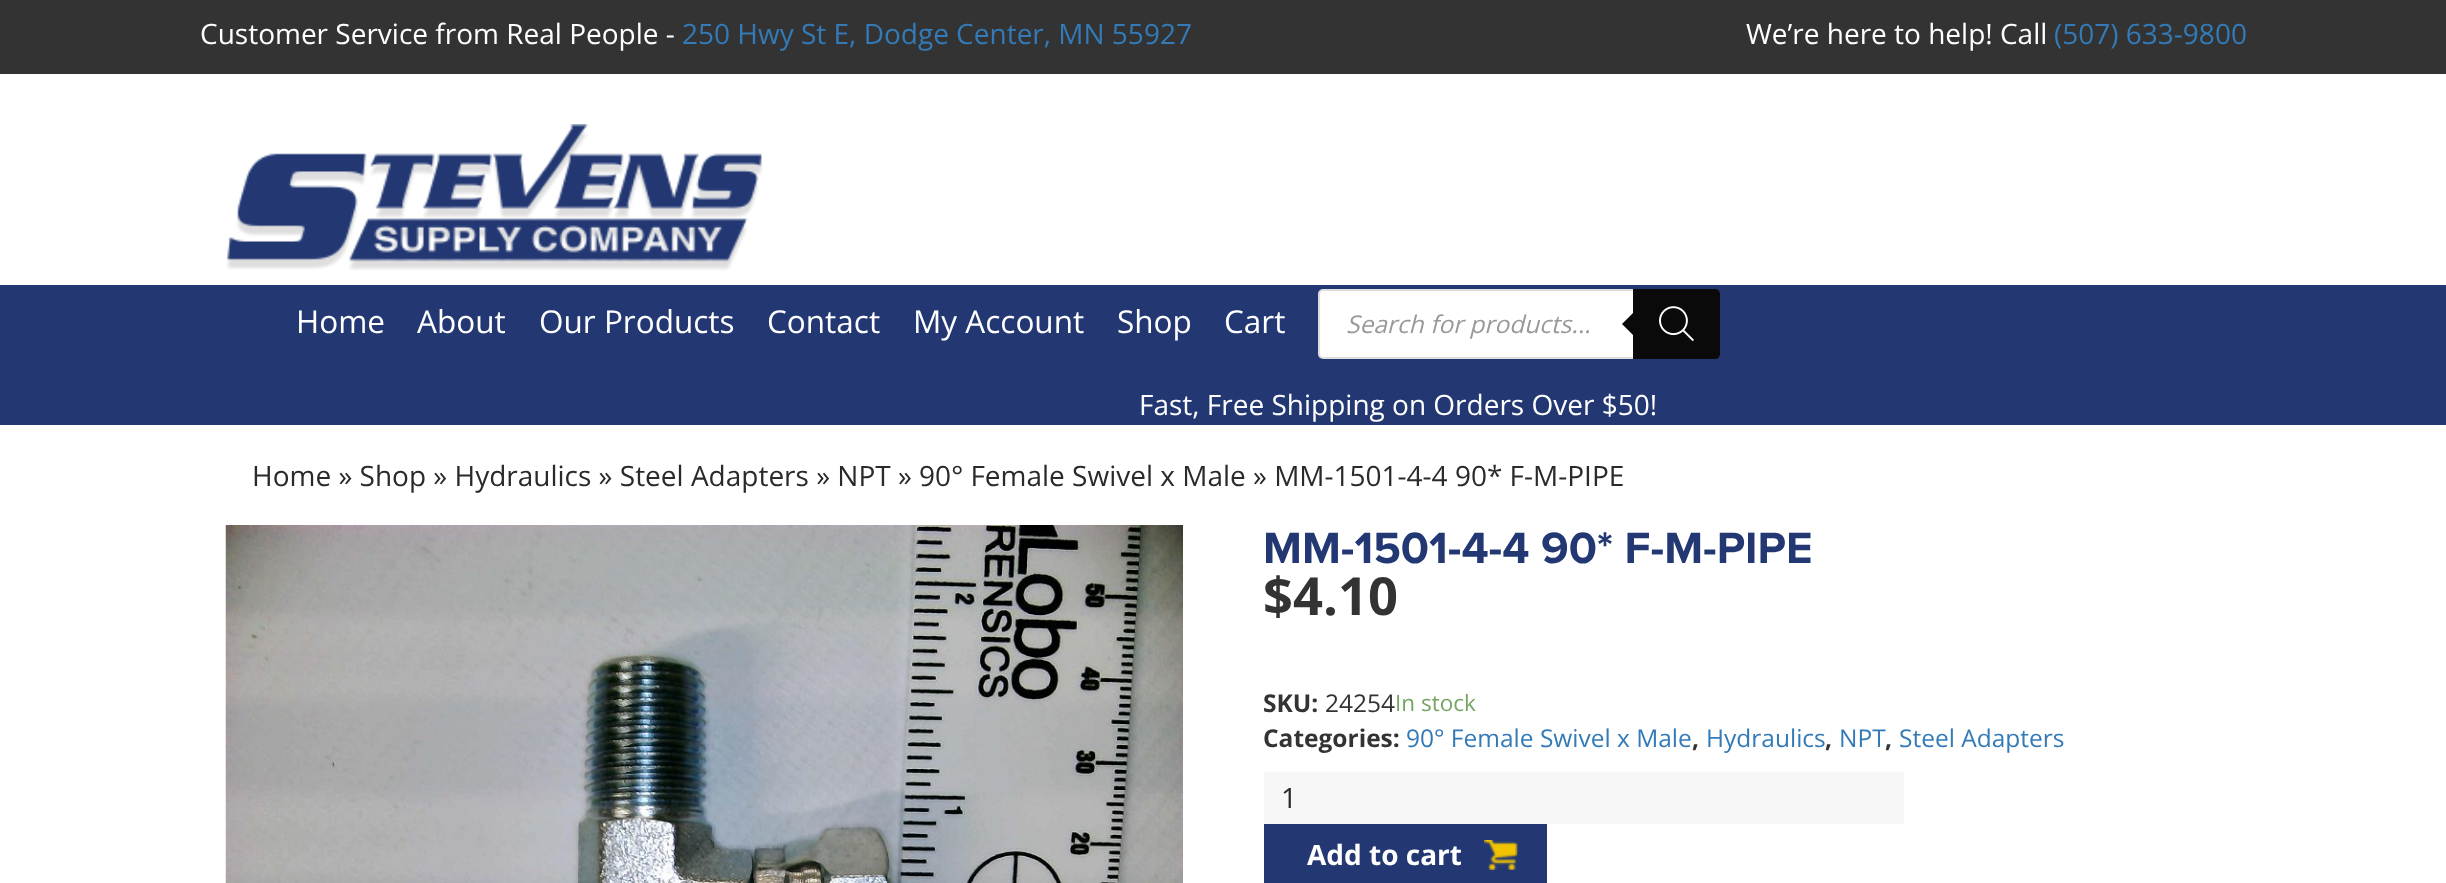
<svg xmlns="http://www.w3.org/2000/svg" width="2446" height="883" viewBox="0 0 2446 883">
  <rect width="100%" height="100%" fill="#fff"/>
  <path d="M0 0h2446v74H0z" fill="#333"/>
  <image x="226" y="124" width="537" height="147" href="img/1.png"/>
  <path d="M0 285h2446v140H0z" fill="#233873"/>
  <rect x="1319" y="290" width="400" height="68" rx="4" fill="#fff" stroke="#ddd" stroke-width="2"/>
  <path d="M1633 289H1716C1718 289 1720 291 1720 293V355C1720 357 1718 359 1716 359H1633Z" fill="#0a0a0a"/>
  <path d="M1636 310V338L1622 324Z" fill="#0a0a0a"/>
  <image x="1659" y="306" width="35" height="36" href="img/2.png"/>
  <image x="225" y="525" width="958" height="358" href="img/3.png"/>
  <path d="M1264 772h640v52H1264z" fill="#f7f7f7"/>
  <path d="M1264 824h283v59H1264z" fill="#233873"/>
  <image x="1484" y="840" width="34" height="30" href="img/4.png"/>
  <text x="200" y="44" font-family="Open Sans" font-size="28" fill="#fff">Customer Service from Real People -</text>
  <text x="682" y="44" font-family="Open Sans" font-size="28" fill="#337ab7">250 Hwy St E, Dodge Center, MN 55927</text>
  <text x="1746" y="44" font-family="Open Sans" font-size="28" fill="#fff">We’re here to help! Call</text>
  <text x="2054" y="44" font-family="Open Sans" font-size="28" fill="#337ab7">(507) 633-9800</text>
  <g font-family="Open Sans" font-size="31.5" fill="#fff">
    <text x="296" y="333">Home</text>
    <text x="417" y="333">About</text>
    <text x="539" y="333">Our Products</text>
    <text x="767" y="333">Contact</text>
    <text x="913" y="333">My Account</text>
    <text x="1117" y="333">Shop</text>
    <text x="1224" y="333">Cart</text>
  </g>
  <text x="1346" y="333" font-family="Open Sans" font-size="24.5" font-style="italic" fill="#999">Search for products...</text>
  <text x="1139" y="415" font-family="Open Sans" font-size="28" fill="#fff">Fast, Free Shipping on Orders Over $50!</text>
  <text x="252" y="486" font-family="Open Sans" font-size="28" fill="#2a2a2a">Home » Shop » Hydraulics » Steel Adapters » NPT » 90° Female Swivel x Male » MM-1501-4-4 90* F-M-PIPE</text>
  <text x="1263" y="563" font-family="Proxima Nova" font-size="45.5" font-weight="bold" fill="#233873">MM-1501-4-4 90* F-M-PIPE</text>
  <text x="1263" y="615" font-family="Open Sans" font-size="52.5" font-weight="bold" fill="#333">$4.10</text>
  <text x="1395" y="711" font-family="Open Sans" font-size="22.5" fill="#77a464">In stock</text>
  <text x="1263" y="712" font-family="Open Sans" font-size="24.5" font-weight="bold" fill="#333">SKU:</text>
  <text x="1325" y="712" font-family="Open Sans" font-size="24.5" fill="#333">24254</text>
  <text x="1263" y="747" font-family="Open Sans" font-size="24.5" font-weight="bold" fill="#333">Categories:</text>
  <text x="1406" y="747" font-family="Open Sans" font-size="24.5" fill="#337ab7">90° Female Swivel x Male</text>
  <text x="1692" y="747" font-family="Open Sans" font-size="24.5" font-weight="bold" fill="#333">,</text>
  <text x="1706" y="747" font-family="Open Sans" font-size="24.5" fill="#337ab7">Hydraulics</text>
  <text x="1825" y="747" font-family="Open Sans" font-size="24.5" font-weight="bold" fill="#333">,</text>
  <text x="1839" y="747" font-family="Open Sans" font-size="24.5" fill="#337ab7">NPT</text>
  <text x="1885" y="747" font-family="Open Sans" font-size="24.5" font-weight="bold" fill="#333">,</text>
  <text x="1899" y="747" font-family="Open Sans" font-size="24.5" fill="#337ab7">Steel Adapters</text>
  <text x="1281" y="808" font-family="Open Sans" font-size="28" fill="#2a2a2a">1</text>
  <text x="1307" y="865" font-family="Open Sans" font-size="28" font-weight="bold" fill="#fff">Add to cart</text>
</svg>
